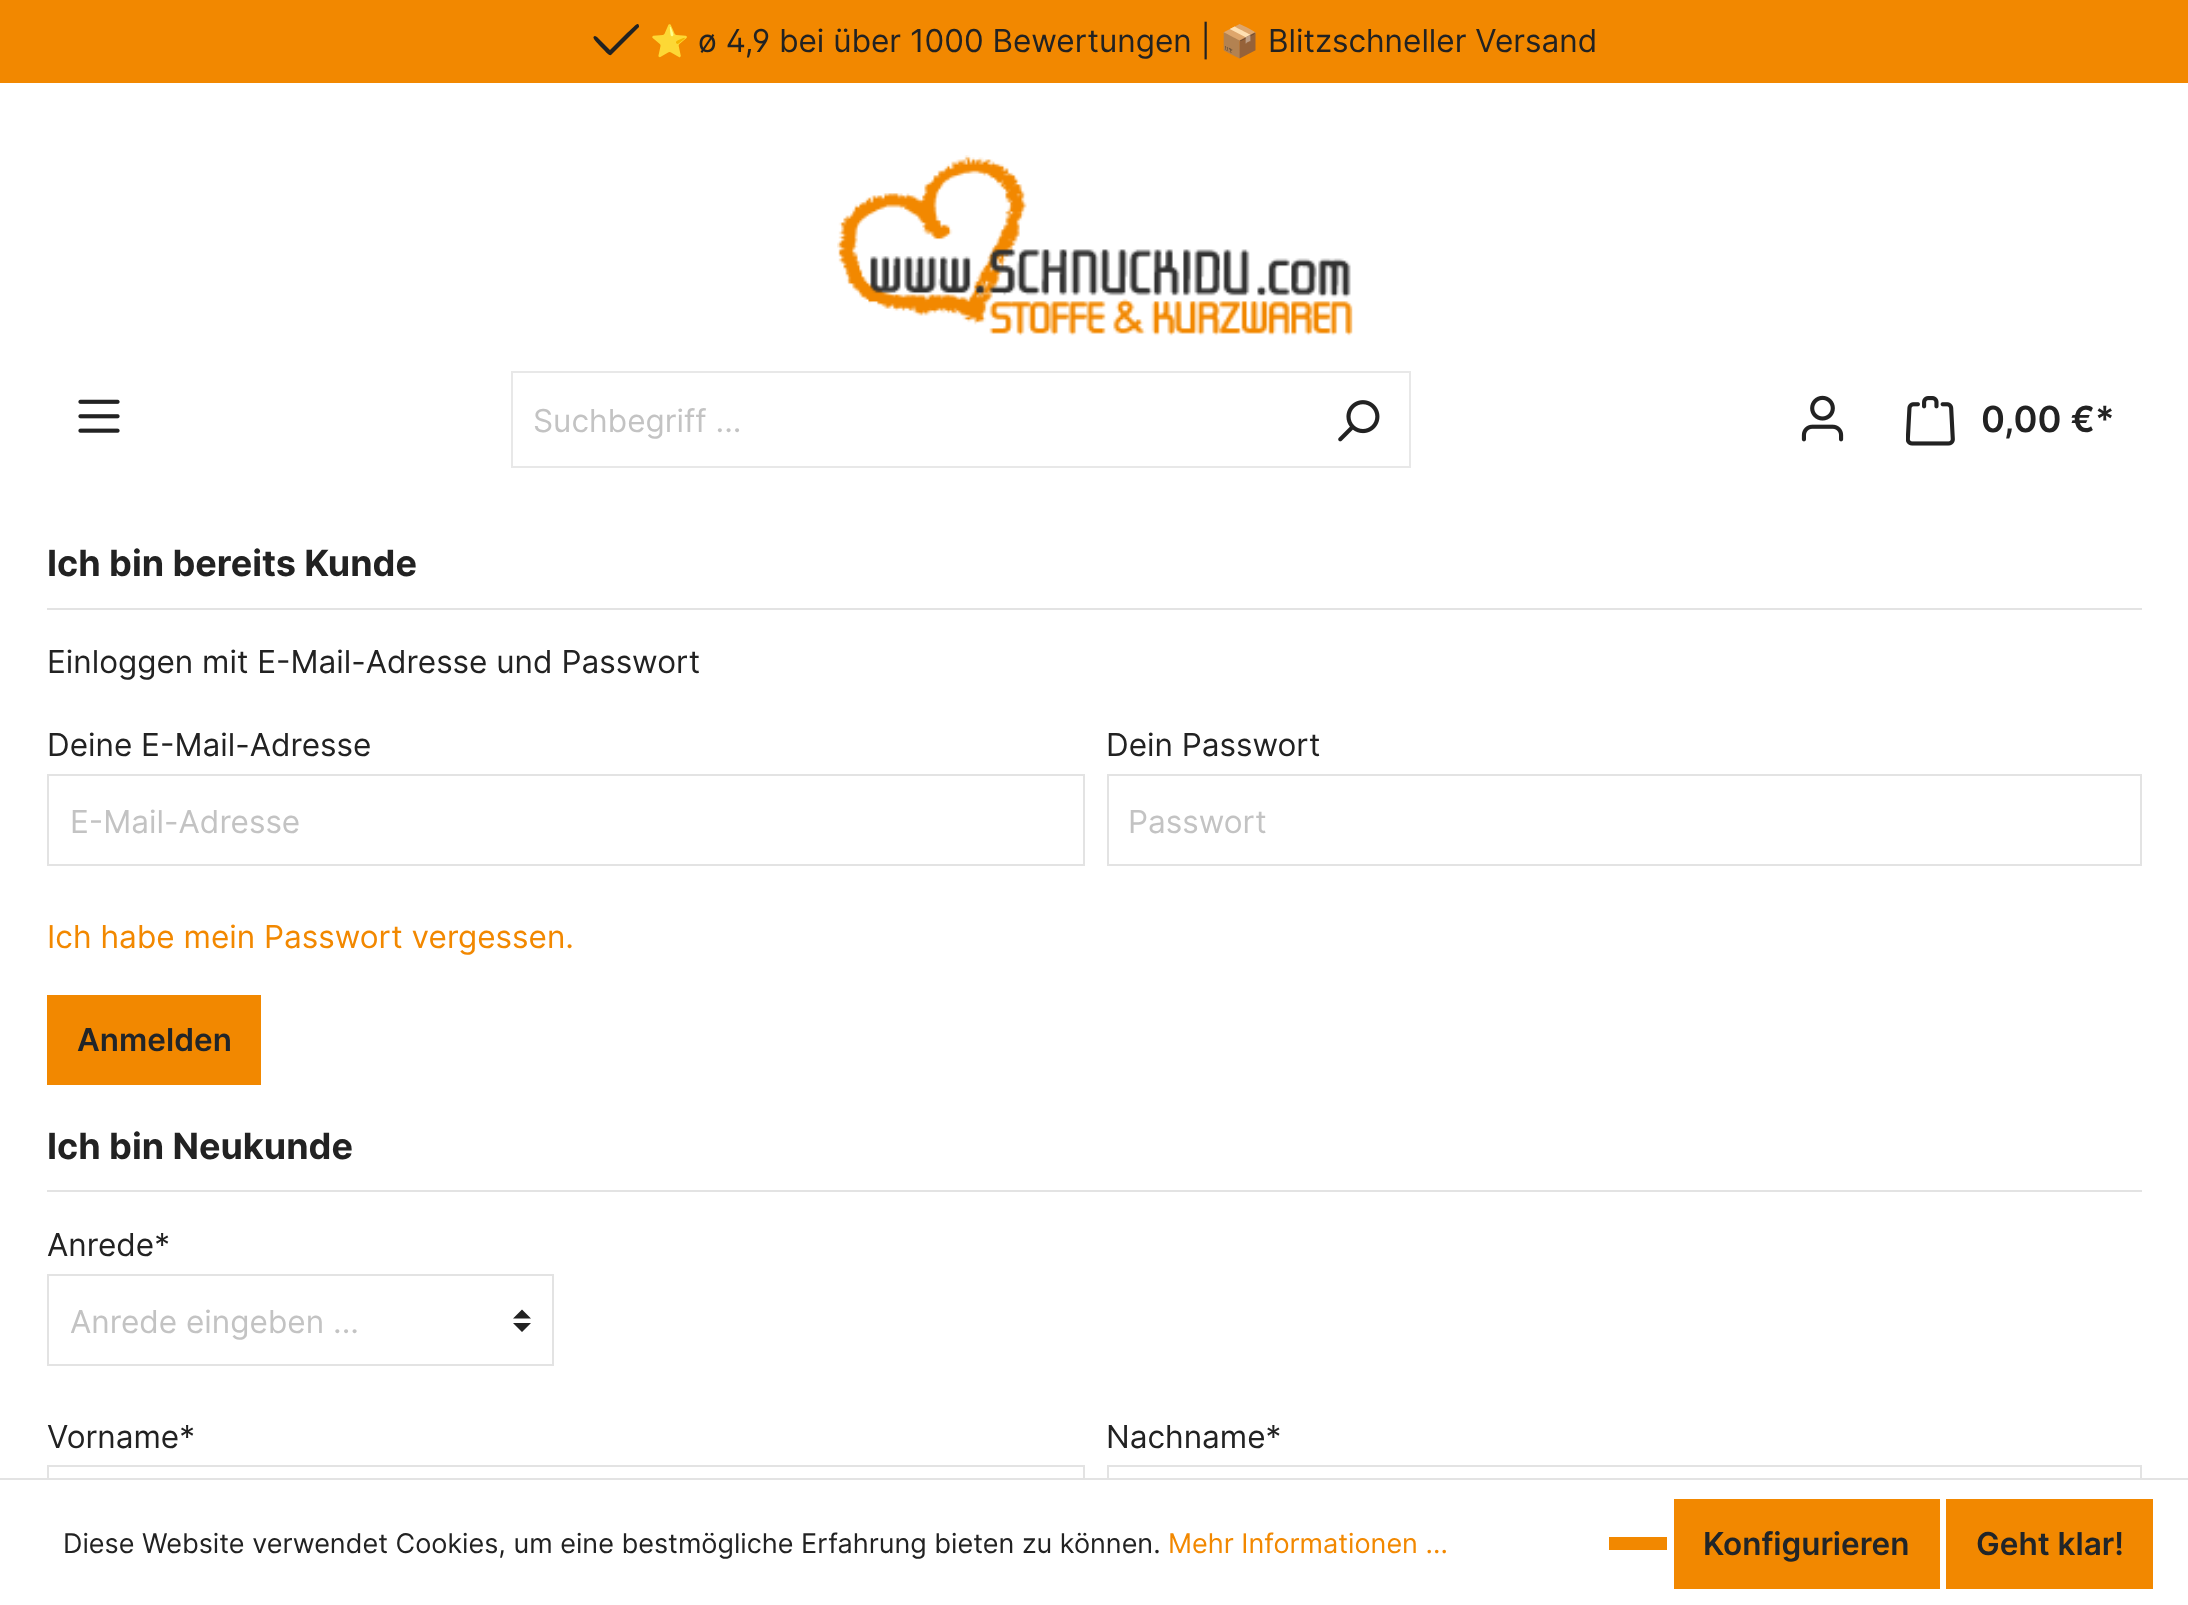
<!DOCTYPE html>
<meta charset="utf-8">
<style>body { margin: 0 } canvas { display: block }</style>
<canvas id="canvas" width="2188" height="1605"></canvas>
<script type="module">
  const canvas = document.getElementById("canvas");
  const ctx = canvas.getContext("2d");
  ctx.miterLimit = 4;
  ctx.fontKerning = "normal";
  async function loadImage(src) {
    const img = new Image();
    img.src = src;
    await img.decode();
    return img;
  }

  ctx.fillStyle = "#ffffff";
  ctx.fillRect(0, 0, 2188, 1605);
  ctx.fillStyle = "#f28800";
  ctx.fillRect(0, 0, 2188, 83);
  ctx.fillStyle = "#222222";
  ctx.beginPath();
  ctx.moveTo(597, 37);
  ctx.lineTo(595, 36);
  ctx.bezierCurveTo(590, 37, 599, 44, 599, 45);
  ctx.lineTo(604, 50);
  ctx.bezierCurveTo(605, 51, 609, 56, 611, 55);
  ctx.lineTo(639, 27);
  ctx.lineTo(639, 26);
  ctx.bezierCurveTo(638, 21, 635, 26, 627, 33);
  ctx.lineTo(610, 50);
  ctx.closePath();
  ctx.fill("evenodd");
  ctx.font = "31.5px Noto Color Emoji";
  ctx.fillText("⭐️", 650, 52);
  ctx.font = "31.5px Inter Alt";
  ctx.fillText("ø 4,9 bei über 1000 Bewertungen |", 698, 52);
  ctx.font = "31.5px Noto Color Emoji";
  ctx.fillText("📦", 1220, 52);
  ctx.font = "31.5px Inter";
  ctx.fillText("Blitzschneller Versand", 1268, 52);
  ctx.drawImage(await loadImage("img1.png"), 837, 155, 516, 181);
  ctx.drawImage(await loadImage("img2.png"), 78, 399, 42, 34);
  ctx.strokeStyle = "#e8e8e8";
  ctx.lineWidth = 2;
  ctx.strokeRect(512, 372, 898, 95);
  ctx.fillStyle = "#c3c3c3";
  ctx.fillText("Suchbegriff ...", 533, 432);
  ctx.drawImage(await loadImage("img3.png"), 1338, 400, 42, 42);
  ctx.drawImage(await loadImage("img4.png"), 1801, 395, 43, 47);
  ctx.drawImage(await loadImage("img5.png"), 1906, 396, 49, 50);
  ctx.font = "600 36px Inter";
  ctx.fillStyle = "#222222";
  ctx.fillText("0,00 €*", 1981, 432);
  ctx.fillStyle = "#e3e3e3";
  ctx.fillRect(47, 608, 2095, 2);
  ctx.font = "bold 36px Inter";
  ctx.fillStyle = "#222222";
  ctx.fillText("Ich bin bereits Kunde", 47, 576);
  ctx.font = "31.5px Inter";
  ctx.fillText("Einloggen mit E-Mail-Adresse und Passwort", 47, 673);
  ctx.fillText("Deine E-Mail-Adresse", 47, 756);
  ctx.strokeStyle = "#e3e3e3";
  ctx.strokeRect(48, 775, 1036, 90);
  ctx.fillStyle = "#c3c3c3";
  ctx.fillText("E-Mail-Adresse", 70, 833);
  ctx.fillStyle = "#222222";
  ctx.fillText("Dein Passwort", 1106, 756);
  ctx.strokeRect(1108, 775, 1033, 90);
  ctx.fillStyle = "#c3c3c3";
  ctx.fillText("Passwort", 1128, 833);
  ctx.fillStyle = "#f28800";
  ctx.fillText("Ich habe mein Passwort vergessen.", 47, 948);
  ctx.fillRect(47, 995, 214, 90);
  ctx.font = "600 31.5px Inter";
  ctx.fillStyle = "#212529";
  ctx.fillText("Anmelden", 77, 1051);
  ctx.fillStyle = "#e3e3e3";
  ctx.fillRect(47, 1190, 2095, 2);
  ctx.font = "bold 36px Inter";
  ctx.fillStyle = "#222222";
  ctx.fillText("Ich bin Neukunde", 47, 1159);
  ctx.font = "31.5px Inter";
  ctx.fillText("Anrede*", 47, 1256);
  ctx.beginPath();
  ctx.moveTo(522, 1309.5);
  ctx.lineTo(513, 1318.5);
  ctx.lineTo(531, 1318.5);
  ctx.closePath();
  ctx.moveTo(522, 1332);
  ctx.lineTo(513, 1323);
  ctx.lineTo(531, 1323);
  ctx.closePath();
  ctx.fill();
  ctx.strokeRect(48, 1275, 505, 90);
  ctx.fillStyle = "#c3c3c3";
  ctx.fillText("Anrede eingeben ...", 70, 1333);
  ctx.fillStyle = "#222222";
  ctx.fillText("Vorname*", 47, 1448);
  ctx.strokeRect(48, 1466, 1036, 90);
  ctx.fillText("Nachname*", 1106, 1448);
  ctx.strokeRect(1108, 1466, 1033, 90);
  ctx.fillStyle = "#ffffff";
  ctx.fillRect(47, 1480, 2095, 77);
  ctx.fillStyle = "#e3e3e3";
  ctx.fillRect(0, 1478, 2188, 2);
  ctx.font = "27px Inter";
  ctx.fillStyle = "#222222";
  ctx.fillText("Diese Website verwendet Cookies, um eine bestmögliche Erfahrung bieten zu können.", 63, 1553);
  ctx.fillStyle = "#f28800";
  ctx.fillText("Mehr Informationen ...", 1168, 1553);
  ctx.fillRect(1609, 1537, 58, 13);
  ctx.fillRect(1674, 1499, 266, 90);
  ctx.font = "600 31.5px Inter";
  ctx.fillStyle = "#212529";
  ctx.fillText("Konfigurieren", 1703, 1555);
  ctx.fillStyle = "#f28800";
  ctx.fillRect(1946, 1499, 207, 90);
  ctx.fillStyle = "#212529";
  ctx.fillText("Geht klar!", 1976, 1555);
</script>
